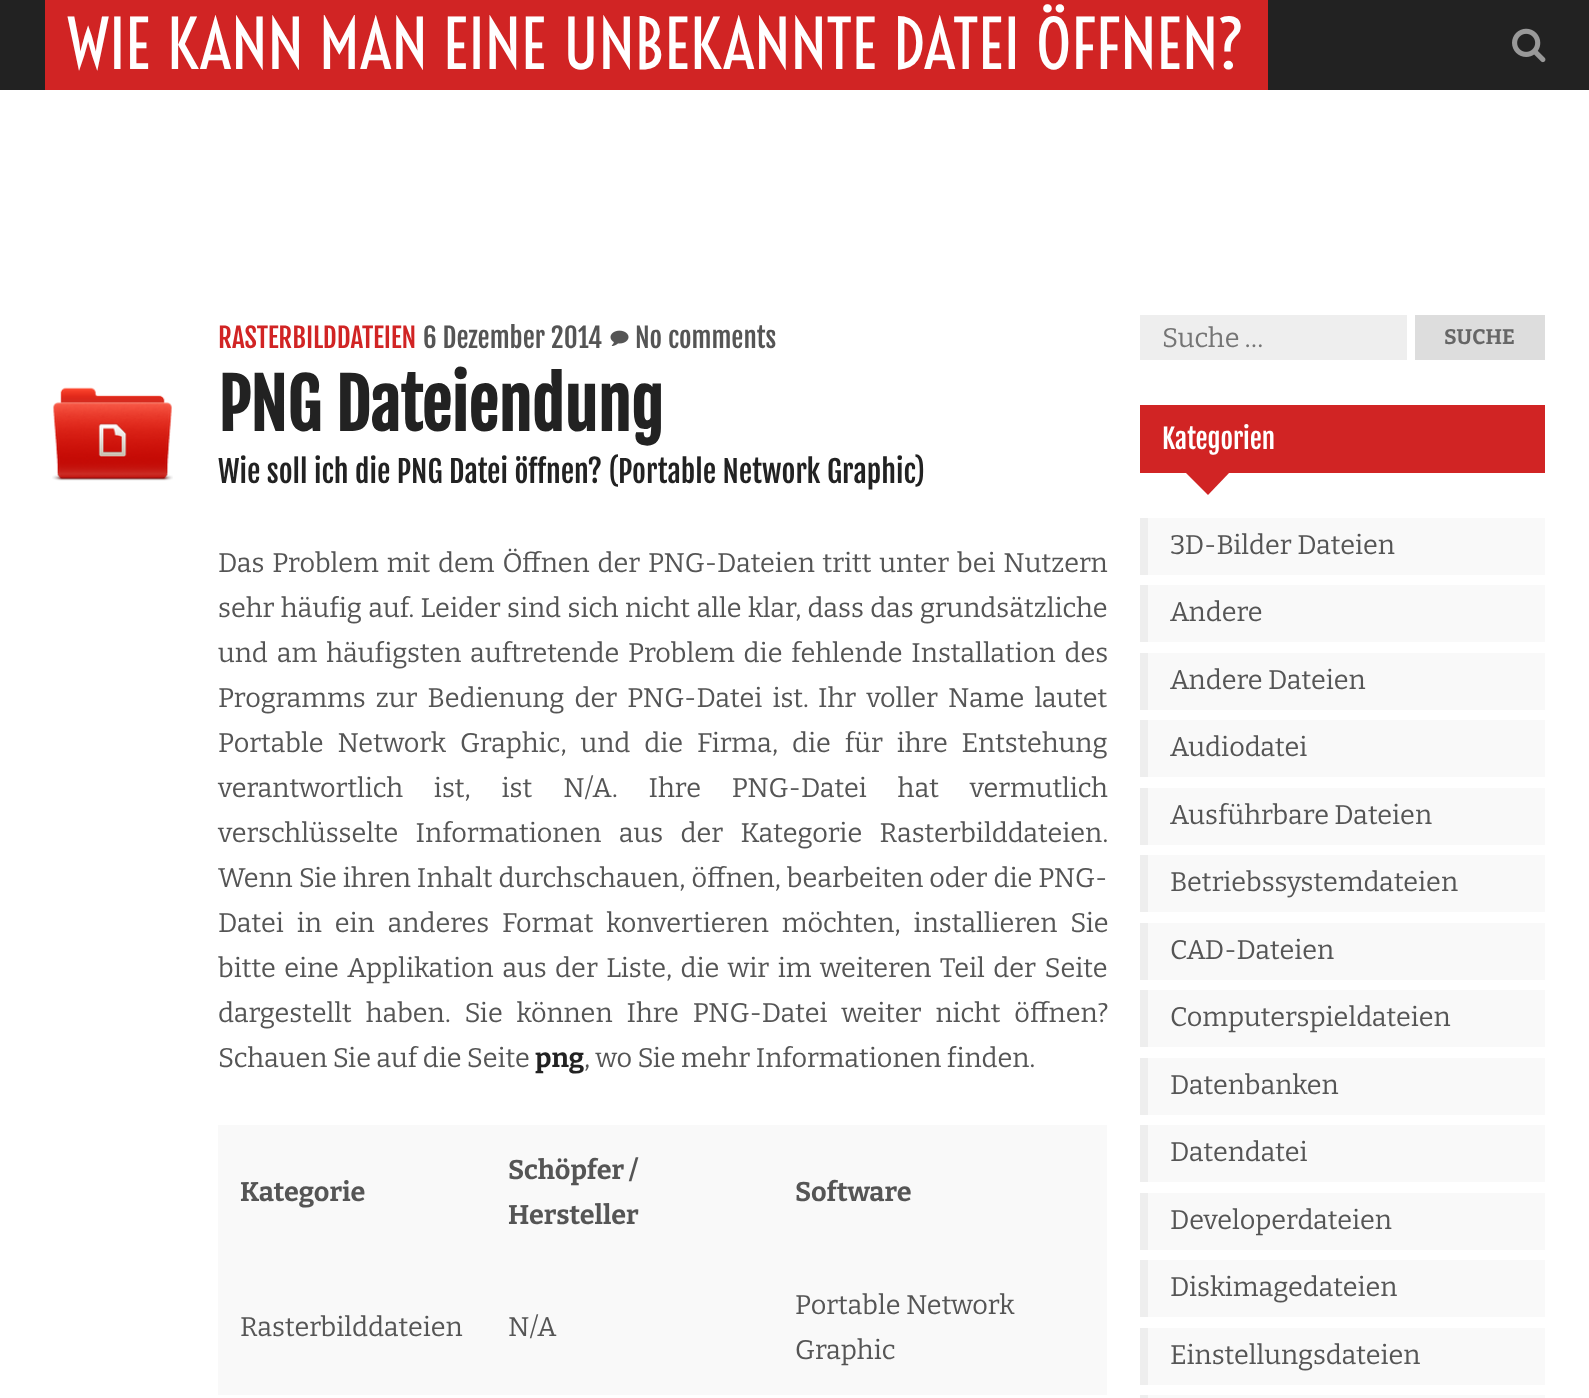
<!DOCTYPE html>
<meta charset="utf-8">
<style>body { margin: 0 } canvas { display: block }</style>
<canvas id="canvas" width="1589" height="1398"></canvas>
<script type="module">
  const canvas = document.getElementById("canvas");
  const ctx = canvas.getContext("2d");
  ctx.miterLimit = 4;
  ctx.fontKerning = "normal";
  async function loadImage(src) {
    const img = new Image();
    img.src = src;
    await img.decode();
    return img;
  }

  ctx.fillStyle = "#ffffff";
  ctx.fillRect(0, 0, 1589, 1398);
  ctx.fillStyle = "#222222";
  ctx.fillRect(0, 0, 1589, 90);
  ctx.fillStyle = "#d12424";
  ctx.fillRect(45, 0, 1223, 90);
  ctx.font = "67.5px Voltaire";
  ctx.fillStyle = "#ffffff";
  ctx.fillText("WIE KANN MAN EINE UNBEKANNTE DATEI ÖFFNEN?", 68, 69);
  ctx.drawImage(await loadImage("img1.png"), 1512, 28, 34, 35);
  ctx.drawImage(await loadImage("img2.png"), 52, 387, 121, 94);
  ctx.font = "27px Fjalla One";
  ctx.fillStyle = "#d12424";
  ctx.fillText("RASTERBILDDATEIEN", 218, 348);
  ctx.fillStyle = "#555555";
  ctx.fillText("6 Dezember 2014", 423, 348);
  ctx.drawImage(await loadImage("img3.png"), 610, 330, 19, 16);
  ctx.fillText("No comments", 635, 348);
  ctx.font = "bold 67.5px Fjalla One";
  ctx.fillStyle = "#222222";
  ctx.fillText("PNG Dateiendung", 218, 431);
  ctx.font = "30px Fjalla One";
  ctx.fillText("Wie soll ich die PNG Datei öffnen? (Portable Network Graphic)", 218, 483);
  ctx.wordSpacing = "2.4px";
  ctx.font = "27px Bitter";
  ctx.fillStyle = "#555555";
  ctx.fillText("Das Problem mit dem Öffnen der PNG-Dateien tritt unter bei Nutzern", 218, 572);
  ctx.wordSpacing = "1px";
  ctx.fillText("sehr häufig auf. Leider sind sich nicht alle klar, dass das grundsätzliche", 218, 617);
  ctx.wordSpacing = "3.5px";
  ctx.fillText("und am häufigsten auftretende Problem die fehlende Installation des", 218, 662);
  ctx.wordSpacing = "4.75px";
  ctx.fillText("Programms zur Bedienung der PNG-Datei ist.", 218, 707);
  ctx.fillText("Ihr voller Name lautet", 818, 707);
  ctx.wordSpacing = "8.5px";
  ctx.fillText("Portable Network Graphic, und die Firma, die für ihre Entstehung", 218, 752);
  ctx.wordSpacing = "25.5px";
  ctx.fillText("verantwortlich ist, ist N/A. Ihre PNG-Datei hat vermutlich", 218, 797);
  ctx.wordSpacing = "12px";
  ctx.fillText("verschlüsselte Informationen aus der Kategorie Rasterbilddateien.", 218, 842);
  ctx.wordSpacing = "0.6px";
  ctx.fillText("Wenn Sie ihren Inhalt durchschauen, öffnen, bearbeiten oder die PNG-", 218, 887);
  ctx.wordSpacing = "7.5px";
  ctx.fillText("Datei in ein anderes Format konvertieren möchten, installieren Sie", 218, 932);
  ctx.wordSpacing = "3.1px";
  ctx.fillText("bitte eine Applikation aus der Liste, die wir im weiteren Teil der Seite", 218, 977);
  ctx.wordSpacing = "8.5px";
  ctx.fillText("dargestellt haben. Sie können Ihre PNG-Datei weiter nicht öffnen?", 218, 1022);
  ctx.wordSpacing = "0px";
  ctx.fillText("Schauen Sie auf die Seite", 218, 1067);
  ctx.font = "bold 27px Bitter";
  ctx.fillStyle = "#222222";
  ctx.fillText("png", 535, 1067);
  ctx.font = "27px Bitter";
  ctx.fillStyle = "#555555";
  ctx.fillText(", wo Sie mehr Informationen finden.", 584, 1067);
  ctx.fillStyle = "#f9f9f9";
  ctx.fillRect(218, 1125, 889, 270);
  ctx.font = "bold 27px Bitter";
  ctx.fillStyle = "#555555";
  ctx.fillText("Kategorie", 240, 1201);
  ctx.fillText("Schöpfer /", 508, 1179);
  ctx.fillText("Hersteller", 508, 1224);
  ctx.fillText("Software", 795, 1201);
  ctx.font = "27px Bitter";
  ctx.fillText("Rasterbilddateien", 240, 1336);
  ctx.fillText("N/A", 508, 1336);
  ctx.fillText("Portable Network", 795, 1314);
  ctx.fillText("Graphic", 795, 1359);
  ctx.fillStyle = "#eeeeee";
  ctx.fillRect(1140, 315, 267, 45);
  ctx.fillStyle = "#757575";
  ctx.fillText("Suche …", 1162, 347);
  ctx.fillStyle = "#dddddd";
  ctx.fillRect(1415, 315, 130, 45);
  ctx.font = "bold 21px Bitter";
  ctx.fillStyle = "#666666";
  ctx.fillText("SUCHE", 1444, 344);
  ctx.fillStyle = "#d12424";
  ctx.fillRect(1140, 405, 405, 68);
  ctx.font = "27px Fjalla One";
  ctx.fillStyle = "#ffffff";
  ctx.fillText("Kategorien", 1162, 449);
  ctx.fillStyle = "#d12424";
  ctx.beginPath();
  ctx.moveTo(1185, 472);
  ctx.lineTo(1230, 472);
  ctx.lineTo(1208, 495);
  ctx.closePath();
  ctx.fill();
  ctx.fillStyle = "#f9f9f9";
  ctx.fillRect(1148, 518, 397, 57);
  ctx.fillStyle = "#eeeeee";
  ctx.fillRect(1140, 518, 8, 57);
  ctx.font = "27px Bitter";
  ctx.fillStyle = "#555555";
  ctx.fillText("3D-Bilder Dateien", 1170, 554);
  ctx.fillStyle = "#f9f9f9";
  ctx.fillRect(1148, 585, 397, 57);
  ctx.fillStyle = "#eeeeee";
  ctx.fillRect(1140, 585, 8, 57);
  ctx.fillStyle = "#555555";
  ctx.fillText("Andere", 1170, 621);
  ctx.fillStyle = "#f9f9f9";
  ctx.fillRect(1148, 653, 397, 57);
  ctx.fillStyle = "#eeeeee";
  ctx.fillRect(1140, 653, 8, 57);
  ctx.fillStyle = "#555555";
  ctx.fillText("Andere Dateien", 1170, 689);
  ctx.fillStyle = "#f9f9f9";
  ctx.fillRect(1148, 720, 397, 57);
  ctx.fillStyle = "#eeeeee";
  ctx.fillRect(1140, 720, 8, 57);
  ctx.fillStyle = "#555555";
  ctx.fillText("Audiodatei", 1170, 756);
  ctx.fillStyle = "#f9f9f9";
  ctx.fillRect(1148, 788, 397, 57);
  ctx.fillStyle = "#eeeeee";
  ctx.fillRect(1140, 788, 8, 57);
  ctx.fillStyle = "#555555";
  ctx.fillText("Ausführbare Dateien", 1170, 824);
  ctx.fillStyle = "#f9f9f9";
  ctx.fillRect(1148, 855, 397, 57);
  ctx.fillStyle = "#eeeeee";
  ctx.fillRect(1140, 855, 8, 57);
  ctx.fillStyle = "#555555";
  ctx.fillText("Betriebssystemdateien", 1170, 891);
  ctx.fillStyle = "#f9f9f9";
  ctx.fillRect(1148, 923, 397, 57);
  ctx.fillStyle = "#eeeeee";
  ctx.fillRect(1140, 923, 8, 57);
  ctx.fillStyle = "#555555";
  ctx.fillText("CAD-Dateien", 1170, 959);
  ctx.fillStyle = "#f9f9f9";
  ctx.fillRect(1148, 990, 397, 57);
  ctx.fillStyle = "#eeeeee";
  ctx.fillRect(1140, 990, 8, 57);
  ctx.fillStyle = "#555555";
  ctx.fillText("Computerspieldateien", 1170, 1026);
  ctx.fillStyle = "#f9f9f9";
  ctx.fillRect(1148, 1058, 397, 57);
  ctx.fillStyle = "#eeeeee";
  ctx.fillRect(1140, 1058, 8, 57);
  ctx.fillStyle = "#555555";
  ctx.fillText("Datenbanken", 1170, 1094);
  ctx.fillStyle = "#f9f9f9";
  ctx.fillRect(1148, 1125, 397, 57);
  ctx.fillStyle = "#eeeeee";
  ctx.fillRect(1140, 1125, 8, 57);
  ctx.fillStyle = "#555555";
  ctx.fillText("Datendatei", 1170, 1161);
  ctx.fillStyle = "#f9f9f9";
  ctx.fillRect(1148, 1193, 397, 57);
  ctx.fillStyle = "#eeeeee";
  ctx.fillRect(1140, 1193, 8, 57);
  ctx.fillStyle = "#555555";
  ctx.fillText("Developerdateien", 1170, 1229);
  ctx.fillStyle = "#f9f9f9";
  ctx.fillRect(1148, 1260, 397, 57);
  ctx.fillStyle = "#eeeeee";
  ctx.fillRect(1140, 1260, 8, 57);
  ctx.fillStyle = "#555555";
  ctx.fillText("Diskimagedateien", 1170, 1296);
  ctx.fillStyle = "#f9f9f9";
  ctx.fillRect(1148, 1328, 397, 57);
  ctx.fillStyle = "#eeeeee";
  ctx.fillRect(1140, 1328, 8, 57);
  ctx.fillStyle = "#555555";
  ctx.fillText("Einstellungsdateien", 1170, 1364);
  ctx.fillStyle = "#f9f9f9";
  ctx.fillRect(1140, 1395, 405, 3);
  ctx.fillStyle = "#eeeeee";
  ctx.fillRect(1140, 1395, 8, 3);
</script>
